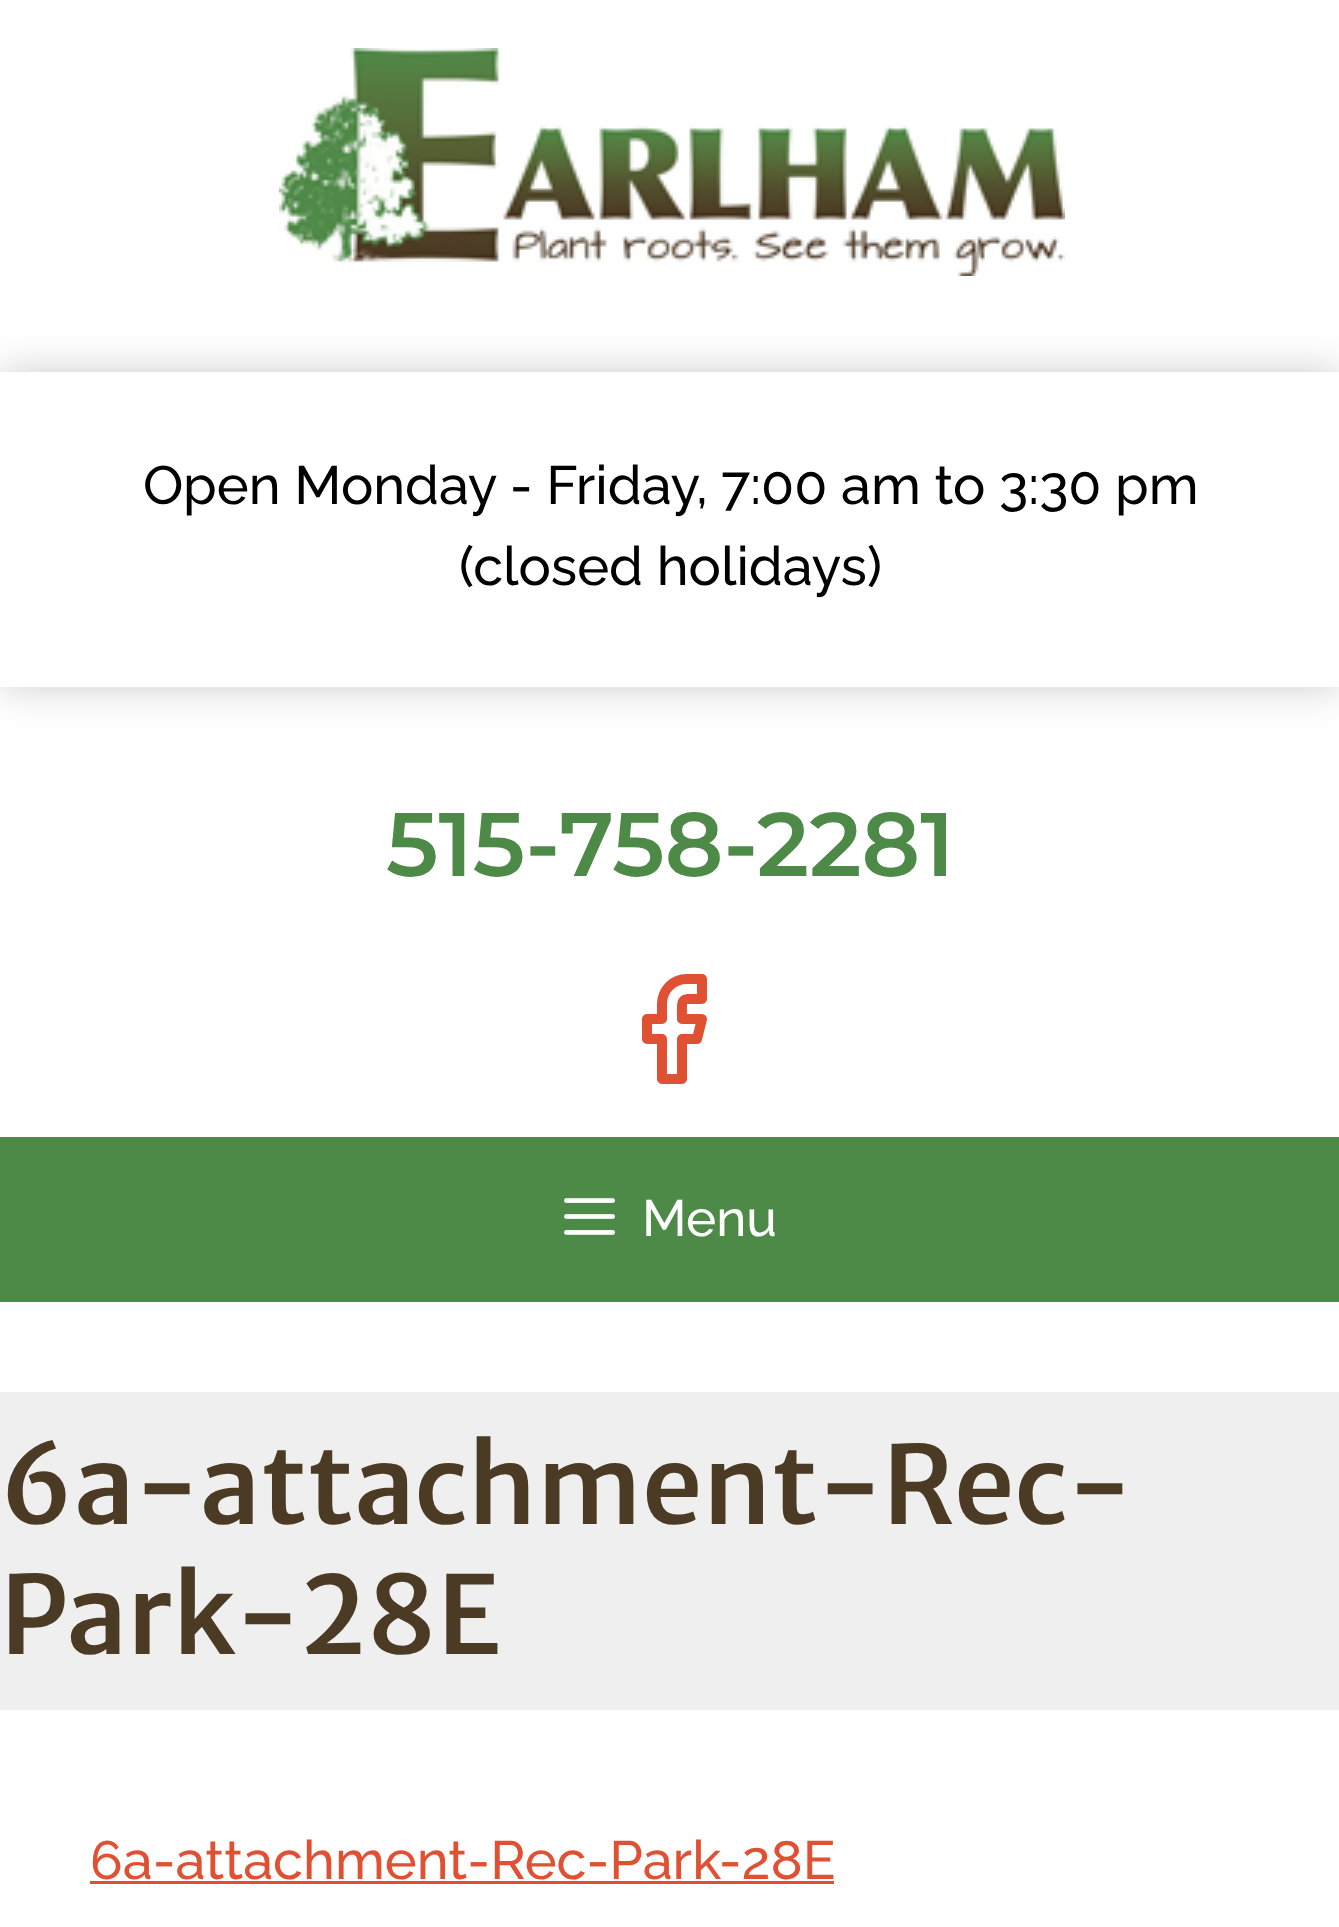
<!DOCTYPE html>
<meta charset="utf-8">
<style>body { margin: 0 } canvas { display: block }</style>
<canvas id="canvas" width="1339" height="1927"></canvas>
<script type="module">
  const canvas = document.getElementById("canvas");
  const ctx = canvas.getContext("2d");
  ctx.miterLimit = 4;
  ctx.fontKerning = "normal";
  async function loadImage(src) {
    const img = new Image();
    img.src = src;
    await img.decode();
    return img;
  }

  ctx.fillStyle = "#ffffff";
  ctx.fillRect(0, 0, 1339, 1927);
  ctx.drawImage(await loadImage("img1.png"), 279, 48, 786, 228);
  ctx.save();
  ctx.beginPath();
  ctx.moveTo(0, 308);
  ctx.lineTo(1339, 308);
  ctx.lineTo(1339, 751);
  ctx.lineTo(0, 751);
  ctx.closePath();
  ctx.moveTo(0, 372);
  ctx.lineTo(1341, 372);
  ctx.lineTo(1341, 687);
  ctx.lineTo(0, 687);
  ctx.closePath();
  ctx.clip("evenodd");
  ctx.fillStyle = "rgba(0, 0, 0, 0.2)";
  ctx.filter = "blur(21px)";
  ctx.beginPath();
  ctx.rect(0, 372, 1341, 315);
  ctx.fill();
  ctx.filter = "none";
  ctx.restore();
  ctx.font = "500 54px Raleway";
  ctx.fillStyle = "#000000";
  ctx.fillText("Open Monday - Friday, 7:00 am to 3:30 pm", 143, 504);
  ctx.fillText("(closed holidays)", 459, 585);
  ctx.font = "600 90px Montserrat";
  ctx.fillStyle = "#4e8a47";
  ctx.fillText("515-758-2281", 386, 876);
  ctx.beginPath();
  ctx.moveTo(702, 979);
  ctx.lineTo(687, 979);
  ctx.bezierCurveTo(673, 979, 662, 990, 662, 1004);
  ctx.lineTo(662, 1019);
  ctx.lineTo(647, 1019);
  ctx.lineTo(647, 1039);
  ctx.lineTo(662, 1039);
  ctx.lineTo(662, 1079);
  ctx.lineTo(682, 1079);
  ctx.lineTo(682, 1039);
  ctx.lineTo(697, 1039);
  ctx.lineTo(702, 1019);
  ctx.lineTo(682, 1019);
  ctx.bezierCurveTo(682, 996.5, 679.5, 999, 702, 999);
  ctx.closePath();
  ctx.strokeStyle = "#e05033";
  ctx.lineWidth = 10;
  ctx.lineCap = "round";
  ctx.lineJoin = "round";
  ctx.stroke();
  ctx.fillRect(0, 1137, 1339, 165);
  ctx.drawImage(await loadImage("img2.png"), 564, 1198, 51, 37);
  ctx.font = "500 51px Raleway";
  ctx.fillStyle = "#ffffff";
  ctx.fillText("Menu", 642, 1236);
  ctx.fillStyle = "#efefef";
  ctx.fillRect(0, 1392, 1339, 318);
  ctx.font = "500 108px Merriweather Sans";
  ctx.fillStyle = "#4b3b24";
  ctx.fillText("6a-attachment-Rec-", 0, 1524);
  ctx.fillText("Park-28E", 0, 1654);
  ctx.font = "500 54px Raleway";
  ctx.fillStyle = "#e05033";
  ctx.fillText("6a-attachment-Rec-Park-28E", 90, 1879);
  ctx.fillRect(90, 1881, 744, 3);
</script>
